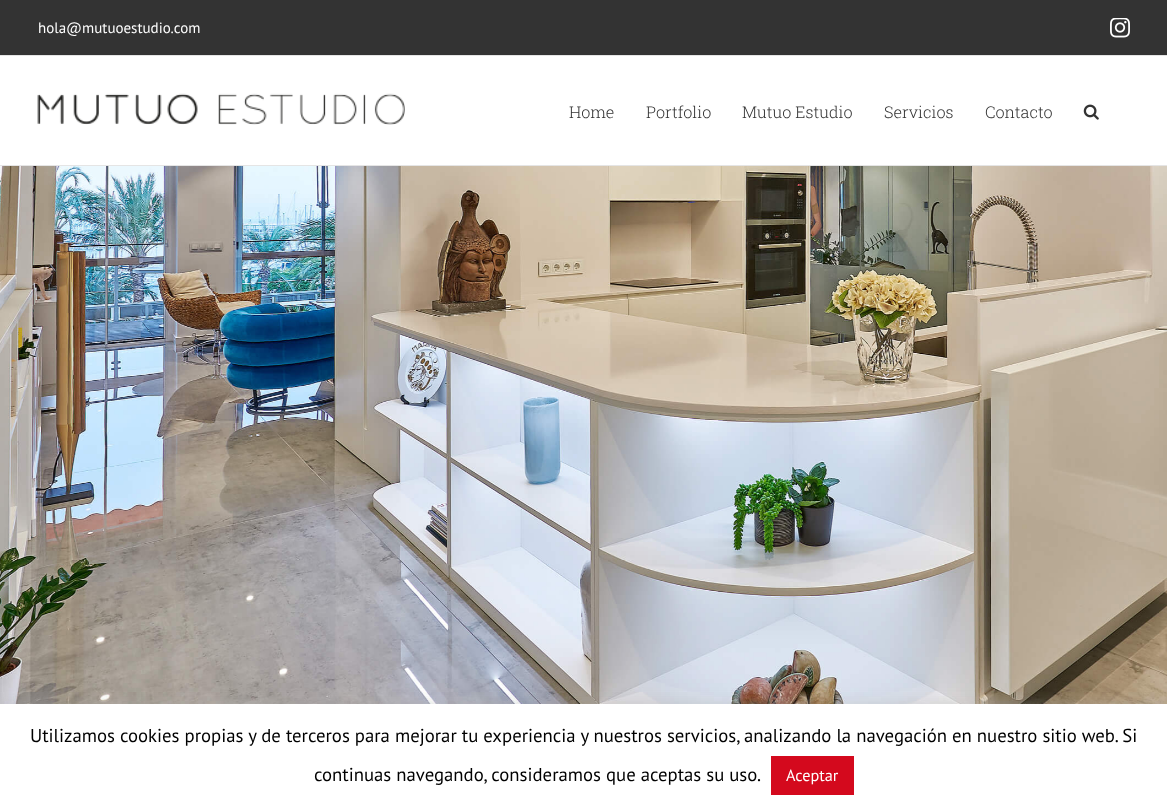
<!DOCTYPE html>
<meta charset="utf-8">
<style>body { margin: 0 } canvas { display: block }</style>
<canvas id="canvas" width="1167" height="809"></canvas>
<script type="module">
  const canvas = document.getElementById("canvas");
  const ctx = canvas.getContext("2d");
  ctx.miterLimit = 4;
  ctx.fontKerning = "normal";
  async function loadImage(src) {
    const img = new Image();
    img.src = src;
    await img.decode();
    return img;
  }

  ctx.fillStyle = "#ffffff";
  ctx.fillRect(0, 0, 1167, 809);
  ctx.fillStyle = "#333333";
  ctx.fillRect(0, 0, 1167, 55);
  ctx.fillStyle = "#e5e5e5";
  ctx.fillRect(0, 55, 1167, 1);
  ctx.font = "15px PT Sans";
  ctx.fillStyle = "#ffffff";
  ctx.fillText("hola@mutuoestudio.com", 38, 33);
  ctx.drawImage(await loadImage("img1.png"), 1110, 18, 20, 20);
  ctx.fillStyle = "#e5e5e5";
  ctx.fillRect(0, 165, 1167, 1);
  ctx.drawImage(await loadImage("img2.png"), 37, 93, 368, 32);
  ctx.font = "300 16.25px Roboto Slab";
  ctx.fillStyle = "#333333";
  ctx.fillText("Home", 569, 118);
  ctx.fillText("Portfolio", 646, 118);
  ctx.fillText("Mutuo Estudio", 742, 118);
  ctx.fillText("Servicios", 884, 118);
  ctx.fillText("Contacto", 985, 118);
  ctx.drawImage(await loadImage("img3.png"), 1083, 104, 16, 16);
  ctx.drawImage(await loadImage("img4.png"), 0, 166, 1167, 538);
  ctx.fillStyle = "rgba(172, 171, 171, 0.3)";
  ctx.filter = "blur(6px)";
  ctx.beginPath();
  ctx.rect(0, 703, 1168, 106);
  ctx.fill();
  ctx.filter = "none";
  ctx.fillStyle = "#ffffff";
  ctx.fillRect(0, 704, 1167, 105);
  ctx.font = "18.75px PT Sans";
  ctx.fillStyle = "#000000";
  ctx.fillText("Utilizamos cookies propias y de terceros para mejorar tu experiencia y nuestros servicios, analizando la navegación en nuestro sitio web. Si", 30, 742);
  ctx.fillText("continuas navegando, consideramos que aceptas su uso.", 314, 781);
  ctx.fillStyle = "#d4091d";
  ctx.fillRect(771, 756, 83, 39);
  ctx.font = "16.25px PT Sans";
  ctx.fillStyle = "#ffffff";
  ctx.fillText("Aceptar", 786, 781);
</script>
